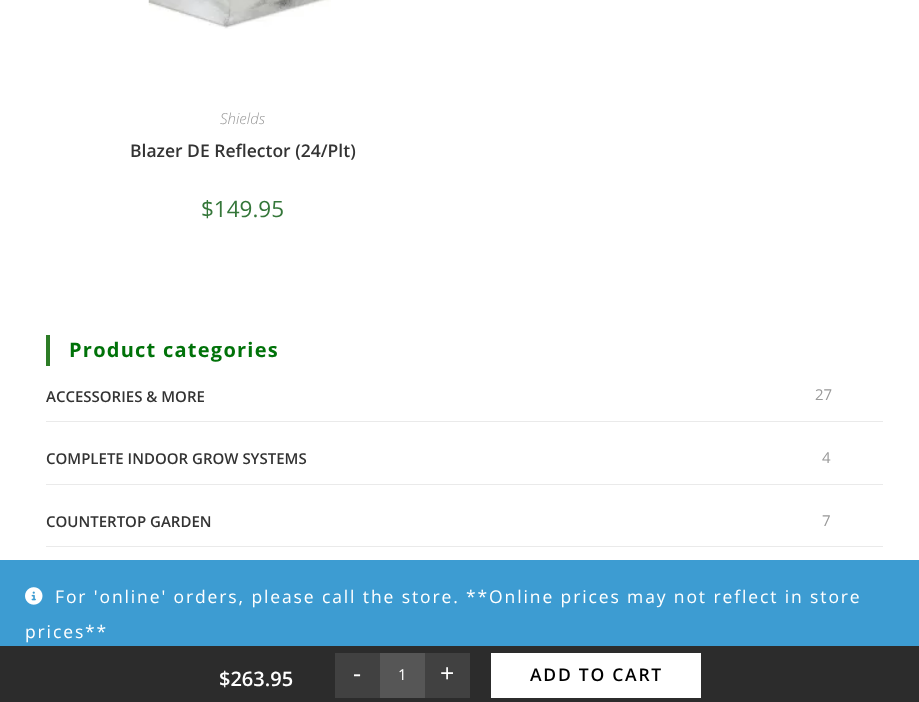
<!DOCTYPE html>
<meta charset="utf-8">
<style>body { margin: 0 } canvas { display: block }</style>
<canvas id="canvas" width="919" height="702"></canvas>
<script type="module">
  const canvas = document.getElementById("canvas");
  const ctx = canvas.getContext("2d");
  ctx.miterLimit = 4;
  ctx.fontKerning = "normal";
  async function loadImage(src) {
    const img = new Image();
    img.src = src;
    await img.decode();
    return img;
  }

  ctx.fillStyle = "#ffffff";
  ctx.fillRect(0, 0, 919, 702);
  ctx.drawImage(await loadImage("img1.png"), 148, 0, 183, 29);
  ctx.font = "italic 300 15px Open Sans";
  ctx.fillStyle = "#999999";
  ctx.fillText("Shields", 220, 124);
  ctx.font = "600 17.5px Open Sans";
  ctx.fillStyle = "#333333";
  ctx.fillText("Blazer DE Reflector (24/Plt)", 130, 157);
  ctx.font = "22.5px Open Sans";
  ctx.fillStyle = "#35773a";
  ctx.fillText("$149.95", 201, 217);
  ctx.fillStyle = "#2d7c26";
  ctx.fillRect(46, 335, 4, 31);
  ctx.letterSpacing = "1.25px";
  ctx.font = "bold 20px Open Sans";
  ctx.fillStyle = "#007209";
  ctx.fillText("Product categories", 69, 357);
  ctx.fillStyle = "#eaeaea";
  ctx.fillRect(46, 421, 837, 1);
  ctx.letterSpacing = "0px";
  ctx.font = "600 15px Open Sans";
  ctx.fillStyle = "#333333";
  ctx.fillText("ACCESSORIES & MORE", 46, 402);
  ctx.font = "15px Open Sans";
  ctx.fillStyle = "#999999";
  ctx.fillText("27", 815, 400);
  ctx.fillStyle = "#eaeaea";
  ctx.fillRect(46, 484, 837, 1);
  ctx.font = "600 15px Open Sans";
  ctx.fillStyle = "#333333";
  ctx.fillText("COMPLETE INDOOR GROW SYSTEMS", 46, 464);
  ctx.font = "15px Open Sans";
  ctx.fillStyle = "#999999";
  ctx.fillText("4", 822, 463);
  ctx.fillStyle = "#eaeaea";
  ctx.fillRect(46, 546, 837, 1);
  ctx.font = "600 15px Open Sans";
  ctx.fillStyle = "#333333";
  ctx.fillText("COUNTERTOP GARDEN", 46, 527);
  ctx.font = "15px Open Sans";
  ctx.fillStyle = "#999999";
  ctx.fillText("7", 822, 526);
  ctx.fillStyle = "#2c2c2c";
  ctx.fillRect(0, 646, 919, 56);
  ctx.font = "600 20px Open Sans";
  ctx.fillStyle = "#ffffff";
  ctx.fillText("$263.95", 219, 686);
  ctx.fillStyle = "#414141";
  ctx.fillRect(335, 653, 45, 45);
  ctx.font = "25px Open Sans";
  ctx.fillStyle = "#ffffff";
  ctx.fillText("-", 353, 682);
  ctx.fillStyle = "#565656";
  ctx.fillRect(380, 653, 45, 45);
  ctx.font = "15px Open Sans";
  ctx.fillStyle = "#ffffff";
  ctx.fillText("1", 398, 680);
  ctx.fillStyle = "#414141";
  ctx.fillRect(425, 653, 45, 45);
  ctx.font = "25px Open Sans";
  ctx.fillStyle = "#ffffff";
  ctx.fillText("+", 440, 682);
  ctx.fillRect(491, 653, 210, 45);
  ctx.letterSpacing = "1.75px";
  ctx.font = "600 17.5px Open Sans";
  ctx.fillStyle = "#000000";
  ctx.fillText("ADD TO CART", 530, 681);
  ctx.fillStyle = "#3d9cd2";
  ctx.fillRect(0, 560, 919, 86);
  ctx.drawImage(await loadImage("img2.png"), 25, 587, 18, 18);
  ctx.letterSpacing = "1.88px";
  ctx.font = "17.5px Open Sans";
  ctx.fillStyle = "#ffffff";
  ctx.fillText("For 'online' orders, please call the store. **Online prices may not reflect in store", 55, 603);
  ctx.fillText("prices**", 25, 638);
</script>
